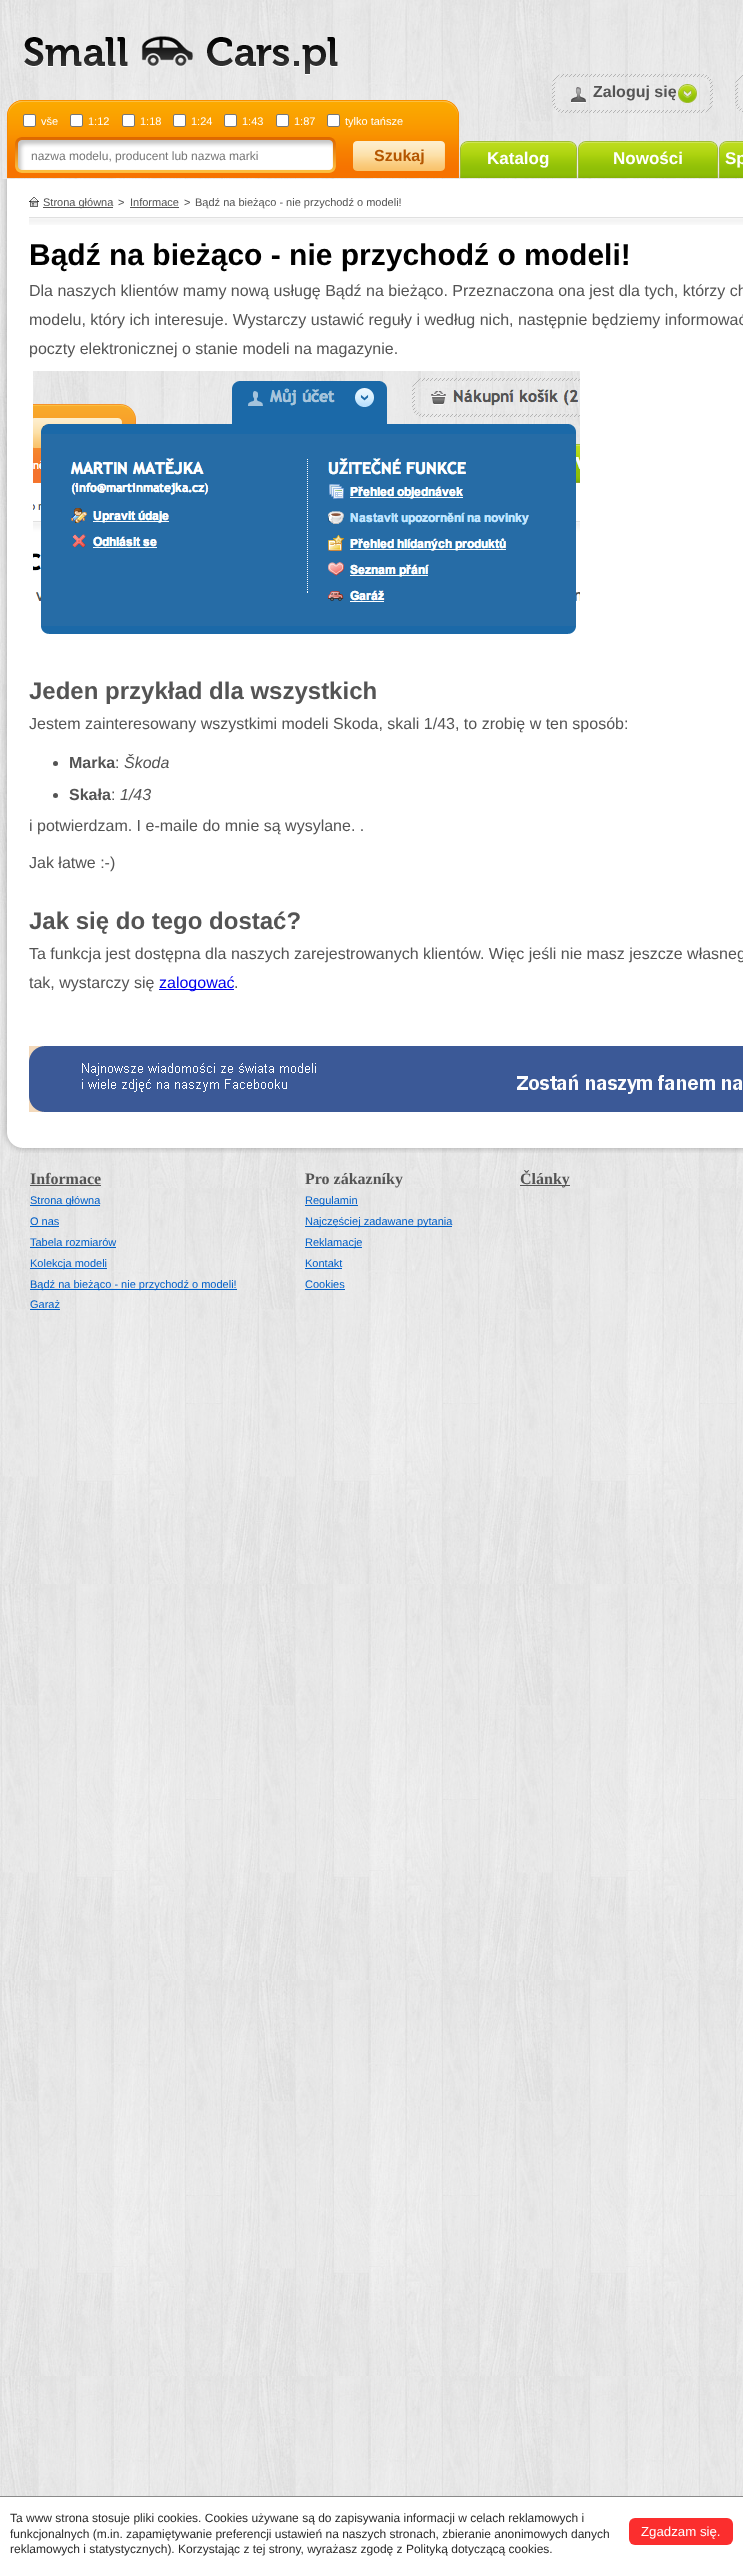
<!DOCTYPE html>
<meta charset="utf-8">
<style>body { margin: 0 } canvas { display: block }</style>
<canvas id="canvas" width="743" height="2572"></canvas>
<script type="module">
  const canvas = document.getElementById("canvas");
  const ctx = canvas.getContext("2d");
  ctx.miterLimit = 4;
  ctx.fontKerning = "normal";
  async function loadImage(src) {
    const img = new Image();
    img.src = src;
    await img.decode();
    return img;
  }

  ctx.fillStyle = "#ffffff";
  ctx.fillRect(0, 0, 743, 2572);
  ctx.drawImage(await loadImage("img1.png"), 0, 0, 743, 2496);
  ctx.drawImage(await loadImage("img2.png"), 24, 36, 314, 39);
  ctx.drawImage(await loadImage("img3.png"), 552, 74, 161, 39);
  ctx.font = "bold 16px Liberation Sans";
  ctx.fillStyle = "#545454";
  ctx.fillText("Zaloguj się", 593, 97);
  ctx.drawImage(await loadImage("img4.png"), 735, 75, 8, 37);
  ctx.drawImage(await loadImage("img5.png"), 7, 100, 452, 78);
  ctx.fillStyle = "#ffffff";
  ctx.beginPath();
  ctx.roundRect(23.5, 114.5, 12, 12, 1.5);
  ctx.fill();
  ctx.strokeStyle = "#767676";
  ctx.stroke();
  ctx.font = "11px Liberation Sans";
  ctx.fillText("vše", 41, 125);
  ctx.beginPath();
  ctx.roundRect(70.5, 114.5, 12, 12, 1.5);
  ctx.fill();
  ctx.stroke();
  ctx.fillText("1:12", 88, 125);
  ctx.beginPath();
  ctx.roundRect(122.5, 114.5, 12, 12, 1.5);
  ctx.fill();
  ctx.stroke();
  ctx.fillText("1:18", 140, 125);
  ctx.beginPath();
  ctx.roundRect(173.5, 114.5, 12, 12, 1.5);
  ctx.fill();
  ctx.stroke();
  ctx.fillText("1:24", 191, 125);
  ctx.beginPath();
  ctx.roundRect(224.5, 114.5, 12, 12, 1.5);
  ctx.fill();
  ctx.stroke();
  ctx.fillText("1:43", 242, 125);
  ctx.beginPath();
  ctx.roundRect(276.5, 114.5, 12, 12, 1.5);
  ctx.fill();
  ctx.stroke();
  ctx.fillText("1:87", 294, 125);
  ctx.beginPath();
  ctx.roundRect(327.5, 114.5, 12, 12, 1.5);
  ctx.fill();
  ctx.stroke();
  ctx.fillText("tylko tańsze", 345, 125);
  ctx.font = "12px Liberation Sans";
  ctx.fillStyle = "#777777";
  ctx.fillText("nazwa modelu, producent lub nazwa marki", 31, 160);
  ctx.drawImage(await loadImage("img6.png"), 353, 141, 92, 30);
  ctx.font = "bold 16px Liberation Sans";
  ctx.fillStyle = "#b45600";
  ctx.fillText("Szukaj", 374, 161);
  ctx.drawImage(await loadImage("img7.png"), 459, 141, 118, 37);
  ctx.font = "bold 17px Liberation Sans";
  ctx.fillStyle = "#ffffff";
  ctx.fillText("Katalog", 487, 164);
  ctx.drawImage(await loadImage("img8.png"), 577, 141, 141, 37);
  ctx.fillText("Nowości", 613, 164);
  ctx.drawImage(await loadImage("img9.png"), 718, 141, 25, 37);
  ctx.fillText("Sp", 725, 164);
  ctx.drawImage(await loadImage("img10.png"), 2, 179, 741, 952);
  ctx.drawImage(await loadImage("img11.png"), 29, 217, 714, 8);
  ctx.drawImage(await loadImage("img12.png"), 29, 197, 10, 10);
  ctx.fillStyle = "#545454";
  ctx.fillRect(43, 207, 70, 1);
  ctx.font = "11px Liberation Sans";
  ctx.fillText("Strona główna", 43, 206);
  ctx.fillText(">", 118, 206);
  ctx.fillText("Informace", 130, 206);
  ctx.fillRect(130, 207, 49, 1);
  ctx.fillText(">", 184, 206);
  ctx.fillText("Bądź na bieżąco - nie przychodź o modeli!", 195, 206);
  ctx.font = "bold 30px Liberation Sans";
  ctx.fillStyle = "#000000";
  ctx.fillText("Bądź na bieżąco - nie przychodź o modeli!", 29, 265);
  ctx.font = "16px Liberation Sans";
  ctx.fillStyle = "#545454";
  ctx.fillText("Dla naszych klientów mamy nową usługę Bądź na bieżąco. Przeznaczona ona jest dla tych, którzy ch", 29, 296);
  ctx.fillText("modelu, który ich interesuje. Wystarczy ustawić reguły i według nich, następnie będziemy informować", 29, 325);
  ctx.fillText("poczty elektronicznej o stanie modeli na magazynie.", 29, 354);
  ctx.drawImage(await loadImage("img13.png"), 33, 371, 547, 263);
  ctx.font = "bold 24px Liberation Sans";
  ctx.fillText("Jeden przykład dla wszystkich", 29, 699);
  ctx.font = "16px Liberation Sans";
  ctx.fillText("Jestem zainteresowany wszystkimi modeli Skoda, skali 1/43, to zrobię w ten sposób:", 29, 729);
  ctx.beginPath();
  ctx.arc(55.5, 763.5, 2.5, 0, Math.PI * 2);
  ctx.fill();
  ctx.font = "bold 16px Liberation Sans";
  ctx.fillText("Marka", 69, 768);
  ctx.font = "16px Liberation Sans";
  ctx.fillText(":", 115, 768);
  ctx.font = "italic 16px Liberation Sans";
  ctx.fillText("Škoda", 124, 768);
  ctx.beginPath();
  ctx.arc(55.5, 795.5, 2.5, 0, Math.PI * 2);
  ctx.fill();
  ctx.font = "bold 16px Liberation Sans";
  ctx.fillText("Skała", 69, 800);
  ctx.font = "16px Liberation Sans";
  ctx.fillText(":", 111, 800);
  ctx.font = "italic 16px Liberation Sans";
  ctx.fillText("1/43", 120, 800);
  ctx.font = "16px Liberation Sans";
  ctx.fillText("i potwierdzam. I e-maile do mnie są wysylane. .", 29, 831);
  ctx.fillText("Jak łatwe :-)", 29, 868);
  ctx.font = "bold 24px Liberation Sans";
  ctx.fillText("Jak się do tego dostać?", 29, 929);
  ctx.font = "16px Liberation Sans";
  ctx.fillText("Ta funkcja jest dostępna dla naszych zarejestrowanych klientów. Więc jeśli nie masz jeszcze własneg", 29, 959);
  ctx.fillText("tak, wystarczy się", 29, 988);
  ctx.fillStyle = "#0000ee";
  ctx.fillRect(159, 989, 75, 1);
  ctx.fillText("zalogować", 159, 988);
  ctx.fillStyle = "#545454";
  ctx.fillText(".", 234, 988);
  ctx.drawImage(await loadImage("img14.png"), 29, 1046, 714, 66);
  ctx.drawImage(await loadImage("img15.png"), 2, 1131, 741, 22);
  ctx.font = "bold 16px Liberation Serif";
  ctx.fillText("Informace", 30, 1184);
  ctx.fillRect(30, 1185, 71, 1);
  ctx.fillStyle = "#005fc8";
  ctx.fillRect(30, 1205, 70, 1);
  ctx.font = "11px Liberation Sans";
  ctx.fillText("Strona główna", 30, 1204);
  ctx.fillText("O nas", 30, 1225);
  ctx.fillRect(30, 1226, 29, 1);
  ctx.fillText("Tabela rozmiarów", 30, 1246);
  ctx.fillRect(30, 1247, 86, 1);
  ctx.fillRect(30, 1268, 77, 1);
  ctx.fillText("Kolekcja modeli", 30, 1267);
  ctx.fillRect(30, 1289, 207, 1);
  ctx.fillText("Bądź na bieżąco - nie przychodź o modeli!", 30, 1288);
  ctx.fillText("Garaż", 30, 1308);
  ctx.fillRect(30, 1309, 30, 1);
  ctx.font = "bold 16px Liberation Serif";
  ctx.fillStyle = "#545454";
  ctx.fillText("Pro zákazníky", 305, 1184);
  ctx.fillStyle = "#005fc8";
  ctx.fillRect(305, 1205, 53, 1);
  ctx.font = "11px Liberation Sans";
  ctx.fillText("Regulamin", 305, 1204);
  ctx.fillRect(305, 1226, 147, 1);
  ctx.fillText("Najczęściej zadawane pytania", 305, 1225);
  ctx.fillRect(305, 1247, 57, 1);
  ctx.fillText("Reklamacje", 305, 1246);
  ctx.fillText("Kontakt", 305, 1267);
  ctx.fillRect(305, 1268, 37, 1);
  ctx.fillText("Cookies", 305, 1288);
  ctx.fillRect(305, 1289, 40, 1);
  ctx.fillStyle = "#545454";
  ctx.fillRect(520, 1185, 50, 1);
  ctx.font = "bold 16px Liberation Serif";
  ctx.fillText("Články", 520, 1184);
  ctx.fillStyle = "#898989";
  ctx.fillRect(0, 2496, 743, 1);
  ctx.font = "12px Liberation Sans";
  ctx.fillStyle = "#2a2a2a";
  ctx.fillText("Ta www strona stosuje pliki cookies. Cookies używane są do zapisywania informacji w celach reklamowych i", 10, 2522);
  ctx.fillText("funkcjonalnych (m.in. zapamiętywanie preferencji ustawień na naszych stronach, zbieranie anonimowych danych", 10, 2538);
  ctx.fillStyle = "#fb2e2e";
  ctx.beginPath();
  ctx.roundRect(629, 2518, 104, 27, 6);
  ctx.fill();
  ctx.font = "13.25px Liberation Sans";
  ctx.fillStyle = "#ffffff";
  ctx.fillText("Zgadzam się.", 641, 2536);
  ctx.font = "12px Liberation Sans";
  ctx.fillStyle = "#2a2a2a";
  ctx.fillText("reklamowych i statystycznych). Korzystając z tej strony, wyrażasz zgodę z Polityką dotyczącą cookies.", 10, 2553);
</script>
